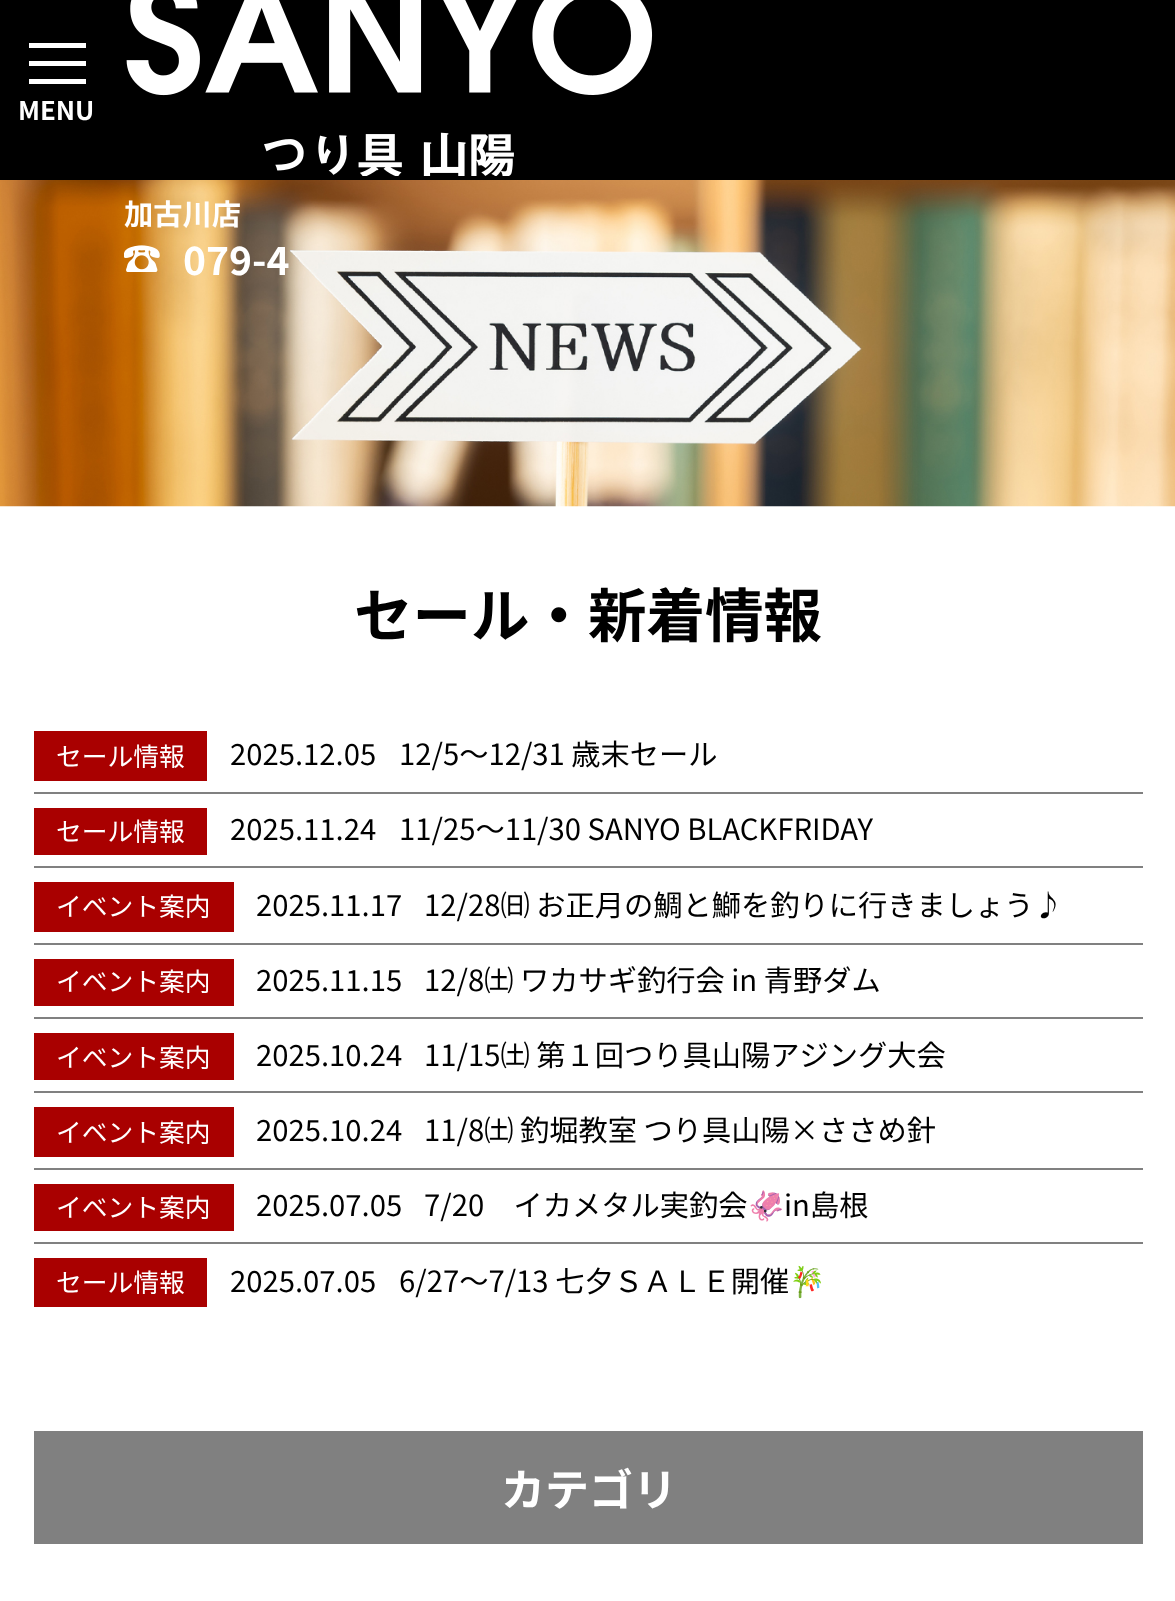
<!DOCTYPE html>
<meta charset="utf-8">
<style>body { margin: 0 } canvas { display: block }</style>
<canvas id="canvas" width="1175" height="1601"></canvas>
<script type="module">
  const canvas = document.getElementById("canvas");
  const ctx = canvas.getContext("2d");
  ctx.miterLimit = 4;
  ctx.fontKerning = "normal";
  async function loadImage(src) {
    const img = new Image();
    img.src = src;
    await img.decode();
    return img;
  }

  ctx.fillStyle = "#ffffff";
  ctx.fillRect(0, 0, 1175, 1601);
  ctx.fillStyle = "#000000";
  ctx.fillRect(0, 0, 1175, 180);
  ctx.fillStyle = "#ffffff";
  ctx.fillRect(29, 43, 57, 5);
  ctx.fillRect(29, 61, 57, 5);
  ctx.fillRect(29, 79, 57, 5);
  ctx.font = "bold 25.75px Noto Sans JP";
  ctx.fillText("MENU", 18, 120);
  ctx.drawImage(await loadImage("img1.png"), 126, 0, 527, 176);
  ctx.drawImage(await loadImage("img3.png"), 0, 180, 1175, 327);
  ctx.font = "bold 29.25px Noto Sans JP";
  ctx.fillText("加古川店", 124, 225);
  ctx.drawImage(await loadImage("img2.png"), 124, 245, 36, 27);
  ctx.font = "bold 39px Noto Sans JP";
  ctx.fillText("079-4", 183, 275);
  ctx.font = "bold 58.5px Noto Sans JP";
  ctx.fillStyle = "#000000";
  ctx.fillText("セール・新着情報", 354, 637);
  ctx.fillStyle = "#808080";
  ctx.fillRect(34, 792, 1109, 2);
  ctx.fillStyle = "#a90000";
  ctx.fillRect(34, 731, 173, 50);
  ctx.font = "25.75px Noto Sans JP";
  ctx.fillStyle = "#ffffff";
  ctx.fillText("セール情報", 56, 766);
  ctx.font = "29.25px Noto Sans JP";
  ctx.fillStyle = "#000000";
  ctx.fillText("2025.12.05", 230, 765);
  ctx.fillText("12/5～12/31 歳末セール", 399, 765);
  ctx.fillStyle = "#808080";
  ctx.fillRect(34, 866, 1109, 2);
  ctx.fillStyle = "#a90000";
  ctx.fillRect(34, 808, 173, 47);
  ctx.font = "25.75px Noto Sans JP";
  ctx.fillStyle = "#ffffff";
  ctx.fillText("セール情報", 56, 841);
  ctx.font = "29.25px Noto Sans JP";
  ctx.fillStyle = "#000000";
  ctx.fillText("2025.11.24", 230, 840);
  ctx.fillText("11/25～11/30 SANYO BLACKFRIDAY", 399, 840);
  ctx.fillStyle = "#808080";
  ctx.fillRect(34, 943, 1109, 2);
  ctx.fillStyle = "#a90000";
  ctx.fillRect(34, 882, 200, 50);
  ctx.font = "25.75px Noto Sans JP";
  ctx.fillStyle = "#ffffff";
  ctx.fillText("イベント案内", 56, 916);
  ctx.font = "29.25px Noto Sans JP";
  ctx.fillStyle = "#000000";
  ctx.fillText("2025.11.17", 256, 916);
  ctx.fillText("12/28㈰ お正月の鯛と鰤を釣りに行きましょう♪", 424, 916);
  ctx.fillStyle = "#808080";
  ctx.fillRect(34, 1017, 1109, 2);
  ctx.fillStyle = "#a90000";
  ctx.fillRect(34, 959, 200, 47);
  ctx.font = "25.75px Noto Sans JP";
  ctx.fillStyle = "#ffffff";
  ctx.fillText("イベント案内", 56, 991);
  ctx.font = "29.25px Noto Sans JP";
  ctx.fillStyle = "#000000";
  ctx.fillText("2025.11.15", 256, 991);
  ctx.fillText("12/8㈯ ワカサギ釣行会 in 青野ダム", 424, 991);
  ctx.fillStyle = "#808080";
  ctx.fillRect(34, 1091, 1109, 2);
  ctx.fillStyle = "#a90000";
  ctx.fillRect(34, 1033, 200, 47);
  ctx.font = "25.75px Noto Sans JP";
  ctx.fillStyle = "#ffffff";
  ctx.fillText("イベント案内", 56, 1067);
  ctx.font = "29.25px Noto Sans JP";
  ctx.fillStyle = "#000000";
  ctx.fillText("2025.10.24", 256, 1066);
  ctx.fillText("11/15㈯ 第１回つり具山陽アジング大会", 424, 1066);
  ctx.fillStyle = "#808080";
  ctx.fillRect(34, 1168, 1109, 2);
  ctx.fillStyle = "#a90000";
  ctx.fillRect(34, 1107, 200, 50);
  ctx.font = "25.75px Noto Sans JP";
  ctx.fillStyle = "#ffffff";
  ctx.fillText("イベント案内", 56, 1142);
  ctx.font = "29.25px Noto Sans JP";
  ctx.fillStyle = "#000000";
  ctx.fillText("2025.10.24", 256, 1141);
  ctx.fillText("11/8㈯ 釣堀教室 つり具山陽×ささめ針", 424, 1141);
  ctx.fillStyle = "#808080";
  ctx.fillRect(34, 1242, 1109, 2);
  ctx.fillStyle = "#a90000";
  ctx.fillRect(34, 1184, 200, 47);
  ctx.font = "25.75px Noto Sans JP";
  ctx.fillStyle = "#ffffff";
  ctx.fillText("イベント案内", 56, 1217);
  ctx.font = "29.25px Noto Sans JP";
  ctx.fillStyle = "#000000";
  ctx.fillText("2025.07.05", 256, 1216);
  ctx.fillText("7/20　イカメタル実釣会", 424, 1216);
  ctx.font = "29.25px Noto Color Emoji";
  ctx.fillText("🦑", 748, 1216);
  ctx.font = "29.25px Noto Sans JP";
  ctx.fillText("in島根", 784, 1216);
  ctx.fillStyle = "#a90000";
  ctx.fillRect(34, 1258, 173, 49);
  ctx.font = "25.75px Noto Sans JP";
  ctx.fillStyle = "#ffffff";
  ctx.fillText("セール情報", 56, 1292);
  ctx.font = "29.25px Noto Sans JP";
  ctx.fillStyle = "#000000";
  ctx.fillText("2025.07.05", 230, 1292);
  ctx.fillText("6/27～7/13 七夕ＳＡＬＥ開催", 399, 1292);
  ctx.font = "29.25px Noto Color Emoji";
  ctx.fillText("🎋", 789, 1292);
  ctx.fillStyle = "#808080";
  ctx.fillRect(34, 1431, 1109, 113);
  ctx.font = "bold 44px Noto Sans JP";
  ctx.fillStyle = "#ffffff";
  ctx.fillText("カテゴリ", 501, 1506);
</script>
